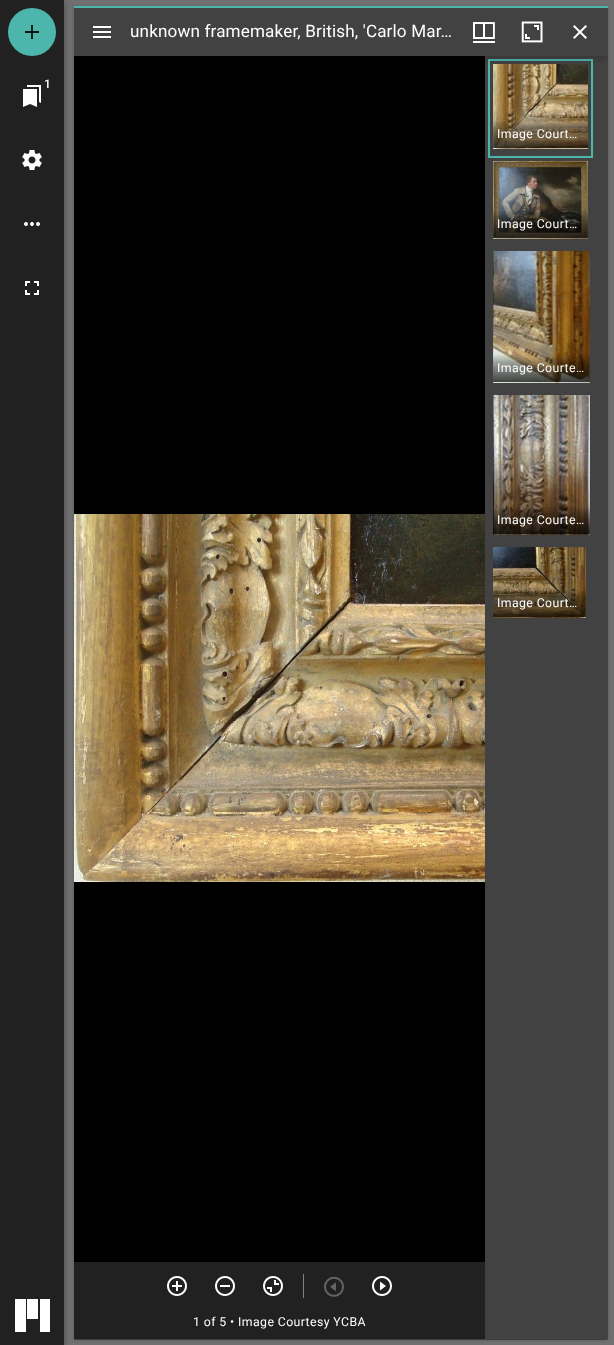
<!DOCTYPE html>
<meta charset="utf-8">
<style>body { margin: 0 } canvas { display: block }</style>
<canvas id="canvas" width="614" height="1345"></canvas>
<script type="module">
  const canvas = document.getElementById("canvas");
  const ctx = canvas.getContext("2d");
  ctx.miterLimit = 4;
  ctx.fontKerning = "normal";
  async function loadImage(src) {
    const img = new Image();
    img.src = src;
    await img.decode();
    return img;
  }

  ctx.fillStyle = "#707070";
  ctx.fillRect(0, 0, 614, 1345);
  ctx.fillStyle = "rgba(0, 0, 0, 0.2)";
  ctx.filter = "blur(0.5px)";
  ctx.beginPath();
  ctx.rect(75, 9, 532, 1331);
  ctx.fill();
  ctx.filter = "none";
  ctx.filter = "blur(0.5px)";
  ctx.beginPath();
  ctx.rect(74, 7, 534, 1333);
  ctx.fill();
  ctx.filter = "none";
  ctx.filter = "blur(1.5px)";
  ctx.beginPath();
  ctx.rect(74, 7, 534, 1333);
  ctx.fill();
  ctx.filter = "none";
  ctx.fillStyle = "#000000";
  ctx.fillRect(74, 56, 411, 1206);
  ctx.fillStyle = "#424242";
  ctx.fillRect(485, 56, 123, 1283);
  ctx.strokeStyle = "#4db6ac";
  ctx.lineWidth = 2;
  ctx.strokeRect(489, 60, 103, 97);
  ctx.drawImage(await loadImage("img10.png"), 493, 64, 95, 85);
  ctx.save();
  ctx.beginPath();
  ctx.rect(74, 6, 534, 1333);
  ctx.clip();
  ctx.fillStyle = "rgba(0, 0, 0, 0.14)";
  ctx.filter = "blur(2.5px)";
  ctx.beginPath();
  ctx.rect(74, 10, 534, 50);
  ctx.fill();
  ctx.filter = "none";
  ctx.restore();
  ctx.fillRect(74, 8, 534, 48);
  ctx.fillStyle = "#4db6ac";
  ctx.fillRect(74, 6, 534, 2);
  ctx.drawImage(await loadImage("img15.png"), 74, 514, 411, 368);
  ctx.fillStyle = "#212121";
  ctx.fillRect(74, 1262, 411, 77);
  ctx.fillStyle = "rgba(0, 0, 0, 0.12)";
  ctx.filter = "blur(5px)";
  ctx.beginPath();
  ctx.rect(0, 1, 64, 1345);
  ctx.fill();
  ctx.filter = "none";
  ctx.fillStyle = "rgba(0, 0, 0, 0.14)";
  ctx.filter = "blur(2.5px)";
  ctx.beginPath();
  ctx.rect(0, 4, 64, 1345);
  ctx.fill();
  ctx.filter = "none";
  ctx.fillStyle = "rgba(0, 0, 0, 0.2)";
  ctx.filter = "blur(2px)";
  ctx.beginPath();
  ctx.rect(1, 3, 62, 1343);
  ctx.fill();
  ctx.filter = "none";
  ctx.fillStyle = "#212121";
  ctx.fillRect(0, 0, 64, 1345);
  ctx.fillStyle = "#4db6ac";
  ctx.beginPath();
  ctx.arc(32, 32, 24, 0, Math.PI * 2);
  ctx.fill();
  ctx.drawImage(await loadImage("img1.png"), 25, 25, 14, 14);
  ctx.font = "500 12px Roboto";
  ctx.fillStyle = "#ffffff";
  ctx.fillText("1", 44, 88);
  ctx.drawImage(await loadImage("img2.png"), 23, 85, 18, 22);
  ctx.drawImage(await loadImage("img3.png"), 22, 150, 20, 20);
  ctx.drawImage(await loadImage("img4.png"), 24, 222, 16, 4);
  ctx.drawImage(await loadImage("img5.png"), 25, 281, 14, 14);
  ctx.fillRect(15, 1299, 11, 33);
  ctx.fillRect(40, 1299, 10, 33);
  ctx.fillRect(27, 1299, 11, 20);
  ctx.drawImage(await loadImage("img6.png"), 93, 26, 18, 12);
  ctx.letterSpacing = "0.15px";
  ctx.font = "17.1px Roboto";
  ctx.fillText("unknown framemaker, British, 'Carlo Mar…", 130, 37);
  ctx.drawImage(await loadImage("img7.png"), 473, 22, 22, 21);
  ctx.drawImage(await loadImage("img8.png"), 521, 21, 22, 22);
  ctx.drawImage(await loadImage("img9.png"), 573, 25, 14, 14);
  ctx.letterSpacing = "0.4px";
  ctx.font = "12.3px Roboto";
  ctx.fillText("Image Court…", 497, 138);
  ctx.drawImage(await loadImage("img11.png"), 493, 161, 95, 78);
  ctx.fillText("Image Court…", 497, 228);
  ctx.drawImage(await loadImage("img12.png"), 493, 251, 97, 132);
  ctx.fillText("Image Courte…", 497, 372);
  ctx.drawImage(await loadImage("img13.png"), 493, 395, 97, 140);
  ctx.fillText("Image Courte…", 497, 524);
  ctx.drawImage(await loadImage("img14.png"), 493, 547, 93, 71);
  ctx.fillText("Image Court…", 497, 607);
  ctx.drawImage(await loadImage("img16.png"), 167, 1276, 20, 20);
  ctx.drawImage(await loadImage("img17.png"), 215, 1276, 20, 20);
  ctx.drawImage(await loadImage("img18.png"), 263, 1276, 20, 20);
  ctx.fillStyle = "#808080";
  ctx.fillRect(303, 1274, 1, 24);
  ctx.drawImage(await loadImage("img19.png"), 324, 1276, 20, 21);
  ctx.drawImage(await loadImage("img20.png"), 372, 1276, 20, 20);
  ctx.fillStyle = "#ffffff";
  ctx.fillText("1 of 5 • Image Courtesy YCBA", 193, 1326);
</script>
